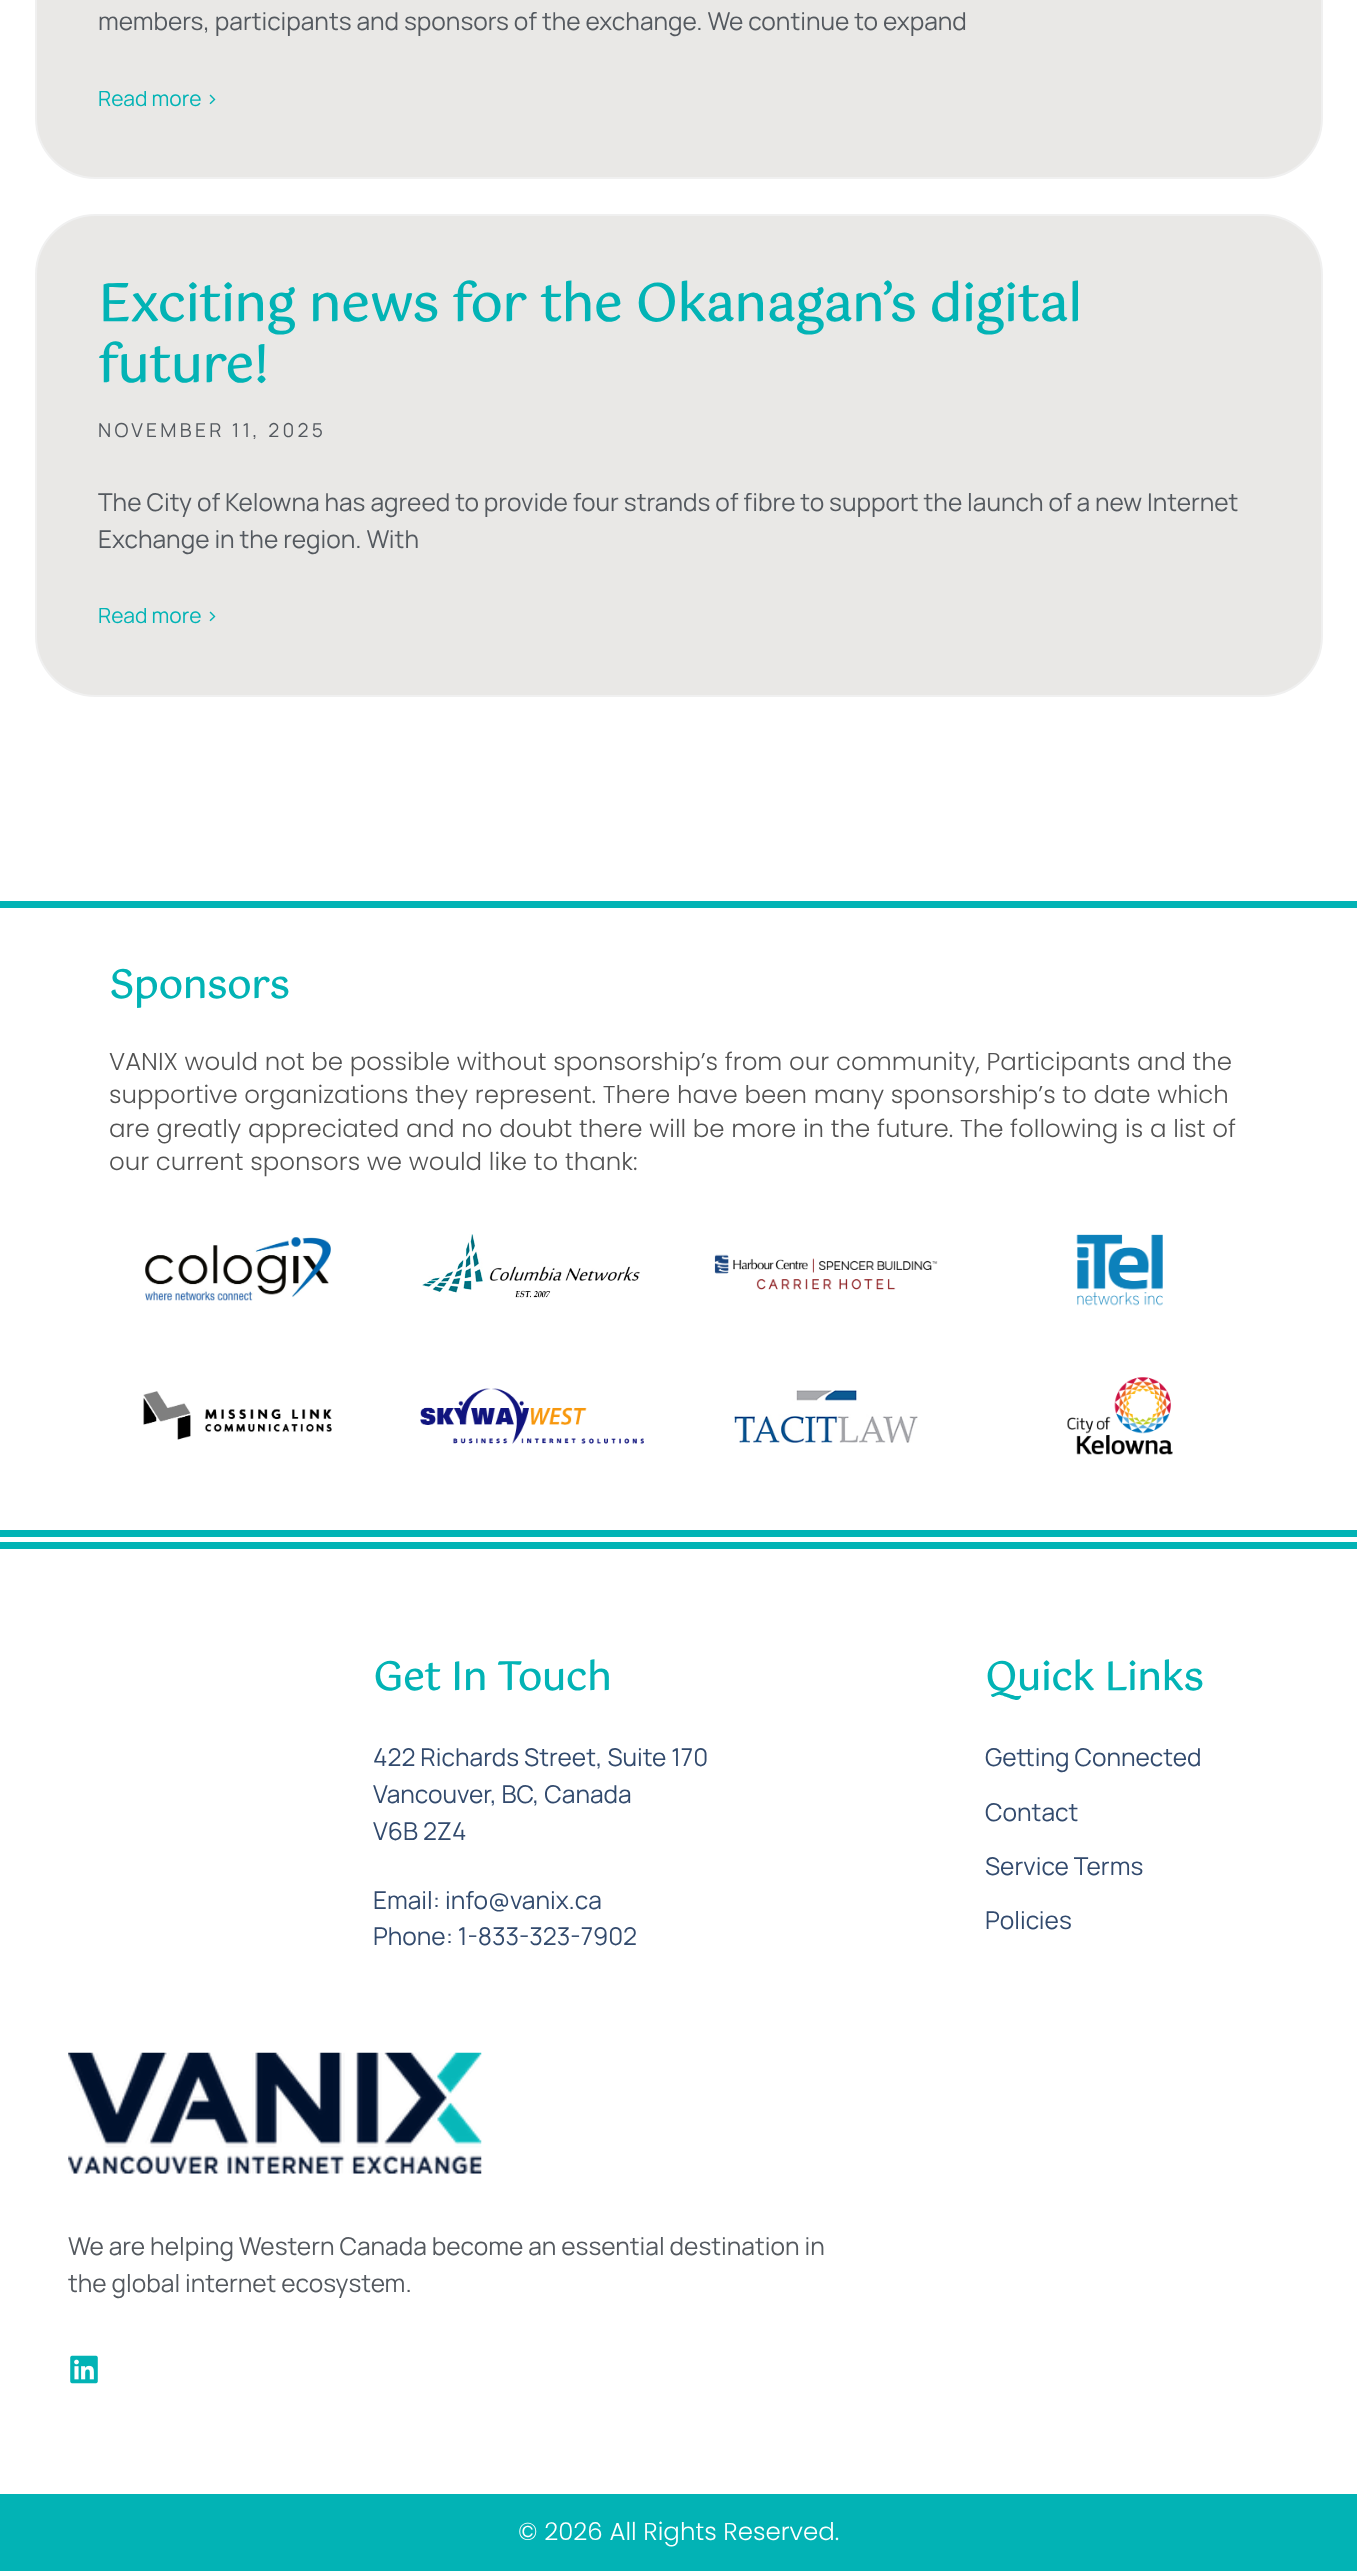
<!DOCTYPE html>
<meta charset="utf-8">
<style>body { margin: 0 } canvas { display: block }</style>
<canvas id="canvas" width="1357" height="2571"></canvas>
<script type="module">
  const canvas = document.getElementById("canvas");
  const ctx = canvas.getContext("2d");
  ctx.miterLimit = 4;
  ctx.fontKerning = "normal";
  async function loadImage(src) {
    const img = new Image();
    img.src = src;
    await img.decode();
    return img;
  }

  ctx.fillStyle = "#ffffff";
  ctx.fillRect(0, 0, 1357, 2571);
  ctx.fillStyle = "#e9e8e6";
  ctx.beginPath();
  ctx.roundRect(36, -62, 1286, 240, 60);
  ctx.fill();
  ctx.strokeStyle = "#f0f0f0";
  ctx.lineWidth = 2;
  ctx.stroke();
  ctx.font = "24.5px Manrope";
  ctx.fillStyle = "#54595f";
  ctx.fillText("members, participants and sponsors of the exchange. We continue to expand", 98, 30);
  ctx.font = "21px Manrope";
  ctx.fillStyle = "#02b3b5";
  ctx.fillText("Read more >", 98, 106);
  ctx.fillStyle = "#e9e8e6";
  ctx.beginPath();
  ctx.roundRect(36, 215, 1286, 481, 60);
  ctx.fill();
  ctx.stroke();
  ctx.font = "bold 50.75px Gotu";
  ctx.fillStyle = "#02b3b5";
  ctx.fillText("Exciting news for the Okanagan’s digital", 98, 321);
  ctx.fillText("future!", 98, 382);
  ctx.letterSpacing = "3.3px";
  ctx.font = "19.25px Manrope";
  ctx.fillStyle = "#54595f";
  ctx.fillText("NOVEMBER 11, 2025", 98, 437);
  ctx.letterSpacing = "0px";
  ctx.font = "24.5px Manrope";
  ctx.fillText("The City of Kelowna has agreed to provide four strands of fibre to support the launch of a new Internet", 98, 511);
  ctx.fillText("Exchange in the region. With", 98, 548);
  ctx.font = "21px Manrope";
  ctx.fillStyle = "#02b3b5";
  ctx.fillText("Read more >", 98, 623);
  ctx.fillRect(0, 901, 1357, 7);
  ctx.font = "bold 38.5px Gotu";
  ctx.fillText("Sponsors", 109, 998);
  ctx.font = "300 24.5px Poppins";
  ctx.fillStyle = "#535353";
  ctx.fillText("VANIX would not be possible without sponsorship’s from our community, Participants and the", 109, 1070);
  ctx.fillText("supportive organizations they represent. There have been many sponsorship’s to date which", 109, 1103);
  ctx.fillText("are greatly appreciated and no doubt there will be more in the future. The following is a list of", 109, 1137);
  ctx.fillText("our current sponsors we would like to thank:", 109, 1170);
  ctx.drawImage(await loadImage("img1.png"), 145, 1237, 186, 64);
  ctx.drawImage(await loadImage("img2.png"), 422, 1234, 218, 64);
  ctx.drawImage(await loadImage("img3.png"), 714, 1254, 224, 36);
  ctx.drawImage(await loadImage("img4.png"), 1076, 1234, 87, 72);
  ctx.drawImage(await loadImage("img5.png"), 143, 1391, 189, 49);
  ctx.drawImage(await loadImage("img6.png"), 420, 1388, 224, 56);
  ctx.drawImage(await loadImage("img7.png"), 734, 1390, 184, 53);
  ctx.drawImage(await loadImage("img8.png"), 1067, 1377, 106, 78);
  ctx.fillStyle = "#02b3b5";
  ctx.fillRect(0, 1530, 1357, 7);
  ctx.fillRect(0, 1542, 1357, 7);
  ctx.font = "bold 38.5px Gotu";
  ctx.fillText("Get In Touch", 373, 1690);
  ctx.font = "24.5px Manrope";
  ctx.fillStyle = "#324a6d";
  ctx.fillText("422 Richards Street, Suite 170", 373, 1766);
  ctx.fillText("Vancouver, BC, Canada", 373, 1803);
  ctx.fillText("V6B 2Z4", 373, 1840);
  ctx.fillText("Email: info@vanix.ca", 373, 1909);
  ctx.fillText("Phone: 1-833-323-7902", 373, 1945);
  ctx.font = "bold 38.5px Gotu";
  ctx.fillStyle = "#02b3b5";
  ctx.fillText("Quick Links", 985, 1690);
  ctx.font = "24.5px Manrope";
  ctx.fillStyle = "#324a6d";
  ctx.fillText("Getting Connected", 985, 1766);
  ctx.fillText("Contact", 985, 1821);
  ctx.fillText("Service Terms", 985, 1875);
  ctx.fillText("Policies", 985, 1929);
  ctx.drawImage(await loadImage("img9.png"), 68, 2052, 414, 122);
  ctx.fillStyle = "#54595f";
  ctx.fillText("We are helping Western Canada become an essential destination in", 68, 2255);
  ctx.fillText("the global internet ecosystem.", 68, 2292);
  ctx.drawImage(await loadImage("img10.png"), 70, 2355, 28, 29);
  ctx.fillStyle = "#02b3b5";
  ctx.fillRect(0, 2494, 1357, 77);
  ctx.font = "300 24.5px Poppins";
  ctx.fillStyle = "#ffffff";
  ctx.fillText("© 2026 All Rights Reserved.", 518, 2540);
</script>
